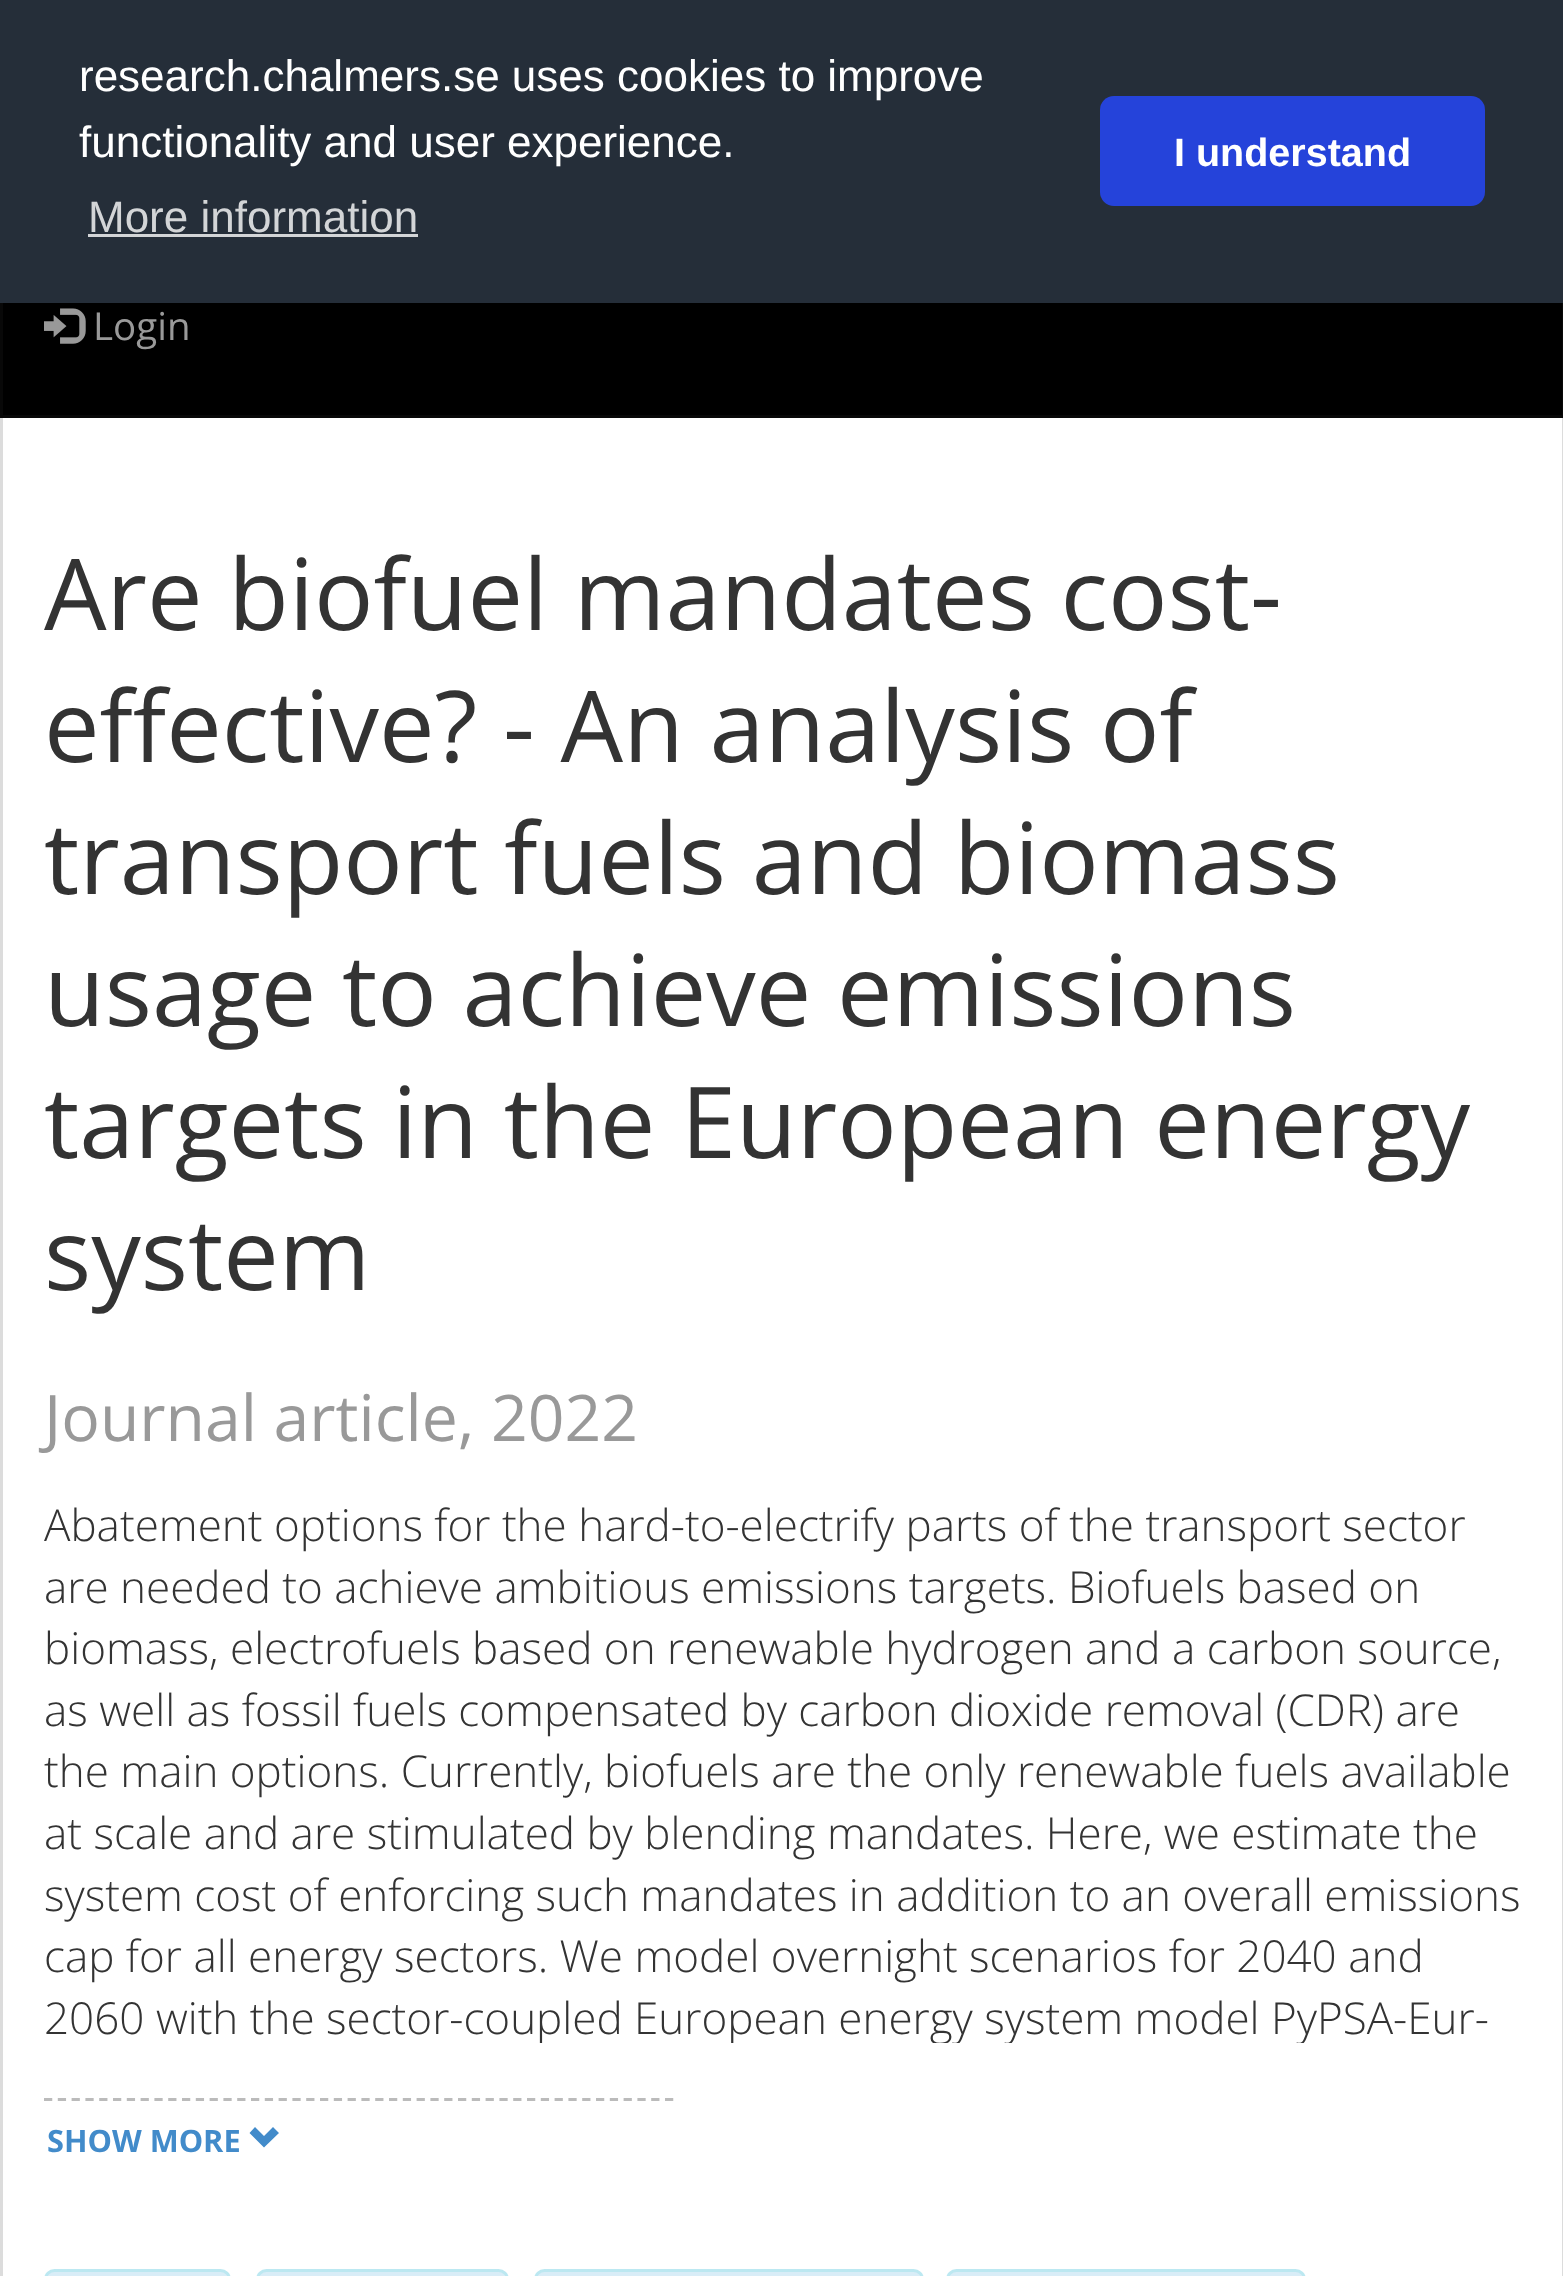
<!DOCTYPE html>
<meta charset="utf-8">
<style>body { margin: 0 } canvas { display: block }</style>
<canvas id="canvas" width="1563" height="2276"></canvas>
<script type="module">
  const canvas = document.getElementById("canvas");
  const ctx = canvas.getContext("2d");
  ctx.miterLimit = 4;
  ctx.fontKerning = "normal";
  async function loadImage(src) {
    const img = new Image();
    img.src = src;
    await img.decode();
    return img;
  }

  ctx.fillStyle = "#ffffff";
  ctx.fillRect(0, 0, 1563, 2276);
  ctx.fillStyle = "#000000";
  ctx.fillRect(3, 303, 1559, 112);
  ctx.strokeStyle = "#080808";
  ctx.lineWidth = 3;
  ctx.strokeRect(1.5, 1.5, 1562, 415);
  ctx.fillStyle = "#252e39";
  ctx.fillRect(0, 0, 1563, 303);
  ctx.font = "44px Liberation Sans";
  ctx.fillStyle = "#ffffff";
  ctx.fillText("research.chalmers.se uses cookies to improve", 79, 91);
  ctx.fillText("functionality and user experience.", 79, 157);
  ctx.fillStyle = "#d3d5d7";
  ctx.fillText("More information", 88, 232);
  ctx.fillRect(88, 234, 330, 3);
  ctx.fillStyle = "#2543da";
  ctx.beginPath();
  ctx.roundRect(1100, 96, 385, 110, 14);
  ctx.fill();
  ctx.font = "bold 39.5px Liberation Sans";
  ctx.fillStyle = "#ffffff";
  ctx.fillText("I understand", 1174, 166);
  ctx.drawImage(await loadImage("img1.png"), 44, 308, 42, 36);
  ctx.font = "38.5px Open Sans";
  ctx.fillStyle = "#999999";
  ctx.fillText("Login", 93, 340);
  ctx.fillStyle = "#dcdcdc";
  ctx.fillRect(1562, 418, 1, 1858);
  ctx.fillRect(0, 418, 3, 1858);
  ctx.font = "99px Open Sans";
  ctx.fillStyle = "#333333";
  ctx.fillText("Are biofuel mandates cost-", 44, 630);
  ctx.fillText("effective? - An analysis of", 44, 762);
  ctx.fillText("transport fuels and biomass", 44, 894);
  ctx.fillText("usage to achieve emissions", 44, 1026);
  ctx.fillText("targets in the European energy", 44, 1158);
  ctx.fillText("system", 44, 1290);
  ctx.font = "64.25px Open Sans";
  ctx.fillStyle = "#999999";
  ctx.fillText("Journal article, 2022", 44, 1441);
  ctx.font = "300 44px Open Sans";
  ctx.fillStyle = "#333333";
  ctx.fillText("Abatement options for the hard-to-electrify parts of the transport sector", 44, 1541);
  ctx.fillText("are needed to achieve ambitious emissions targets. Biofuels based on", 44, 1603);
  ctx.fillText("biomass, electrofuels based on renewable hydrogen and a carbon source,", 44, 1664);
  ctx.fillText("as well as fossil fuels compensated by carbon dioxide removal (CDR) are", 44, 1726);
  ctx.fillText("the main options. Currently, biofuels are the only renewable fuels available", 44, 1787);
  ctx.fillText("at scale and are stimulated by blending mandates. Here, we estimate the", 44, 1849);
  ctx.fillText("system cost of enforcing such mandates in addition to an overall emissions", 44, 1911);
  ctx.fillText("cap for all energy sectors. We model overnight scenarios for 2040 and", 44, 1972);
  ctx.save();
  ctx.beginPath();
  ctx.rect(44, 1493, 1477, 550);
  ctx.clip();
  ctx.fillText("2060 with the sector-coupled European energy system model PyPSA-Eur-", 44, 2034);
  ctx.restore();
  ctx.beginPath();
  ctx.moveTo(44, 2099.5);
  ctx.lineTo(674, 2099.5);
  ctx.strokeStyle = "#bbbbbb";
  ctx.lineWidth = 2.8;
  ctx.setLineDash([8.25, 5.55]);
  ctx.stroke();
  ctx.font = "bold 30.75px Open Sans";
  ctx.fillStyle = "#428bca";
  ctx.fillText("SHOW MORE", 47, 2152);
  ctx.beginPath();
  ctx.moveTo(249.5, 2133);
  ctx.lineTo(264, 2147.5);
  ctx.lineTo(279, 2133);
  ctx.lineTo(273, 2127);
  ctx.lineTo(264, 2136);
  ctx.lineTo(255, 2127);
  ctx.closePath();
  ctx.fill();
  ctx.fillStyle = "#d9edf7";
  ctx.beginPath();
  ctx.roundRect(45.5, 2270.5, 184, 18, 9.5);
  ctx.fill();
  ctx.strokeStyle = "#bce8f1";
  ctx.lineWidth = 3;
  ctx.setLineDash([]);
  ctx.stroke();
  ctx.beginPath();
  ctx.roundRect(257.5, 2270.5, 250, 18, 9.5);
  ctx.fill();
  ctx.stroke();
  ctx.beginPath();
  ctx.roundRect(535.5, 2270.5, 387, 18, 9.5);
  ctx.fill();
  ctx.stroke();
  ctx.beginPath();
  ctx.roundRect(947.5, 2270.5, 357, 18, 9.5);
  ctx.fill();
  ctx.stroke();
</script>
